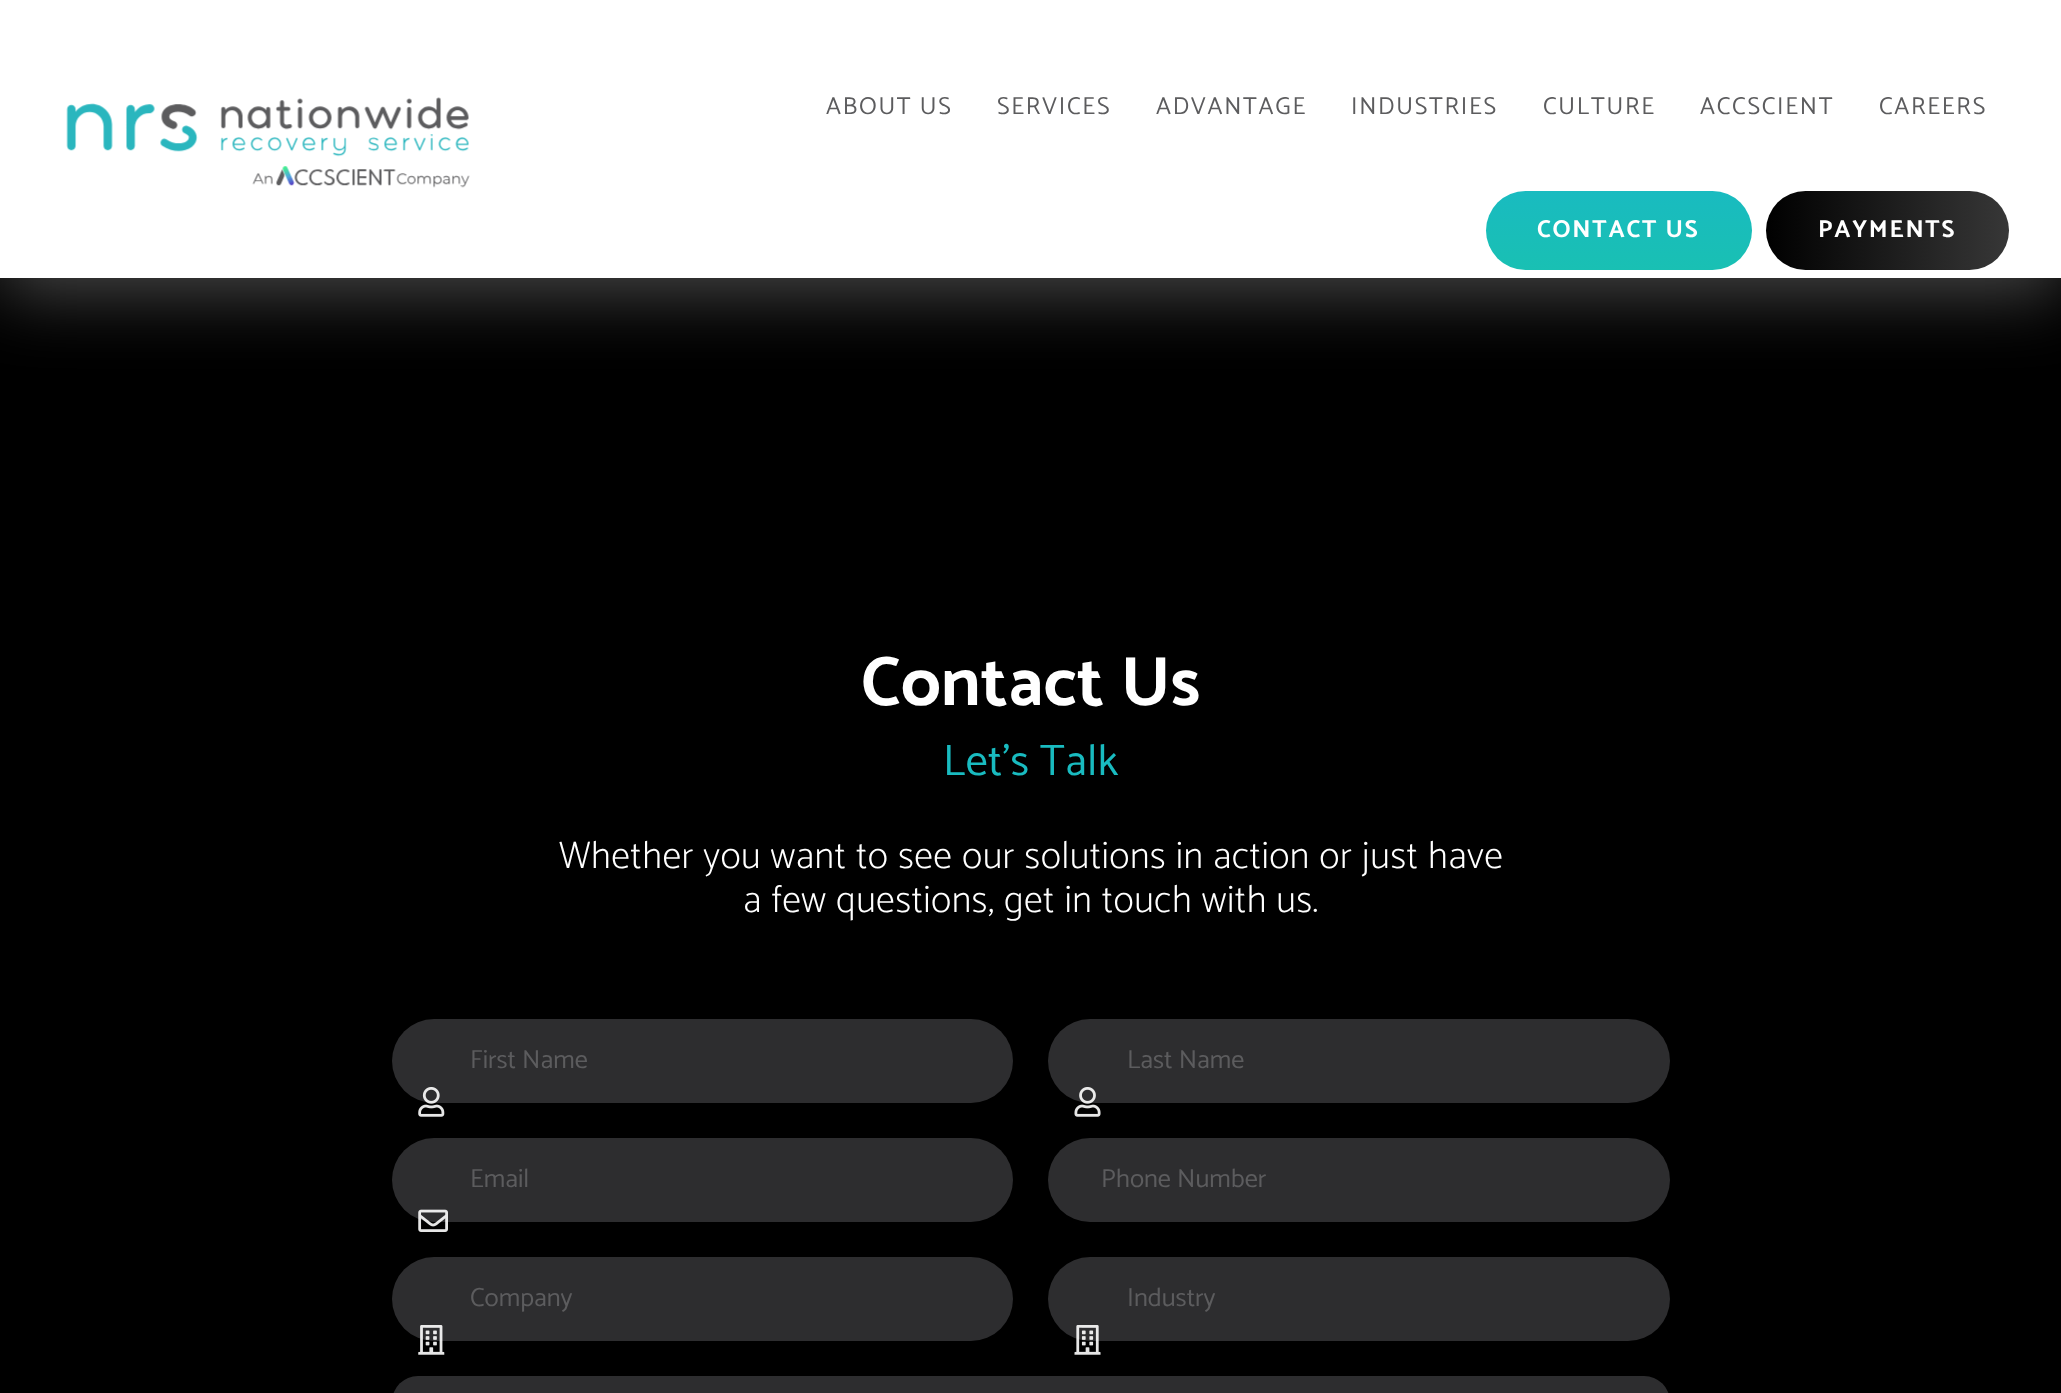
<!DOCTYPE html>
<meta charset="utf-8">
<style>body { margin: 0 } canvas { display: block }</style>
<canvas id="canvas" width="2061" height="1393"></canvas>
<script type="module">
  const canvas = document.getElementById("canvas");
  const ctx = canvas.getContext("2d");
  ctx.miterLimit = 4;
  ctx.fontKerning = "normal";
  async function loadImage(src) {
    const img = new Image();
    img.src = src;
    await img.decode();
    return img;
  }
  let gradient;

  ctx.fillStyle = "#000000";
  ctx.fillRect(0, 0, 2061, 1393);
  ctx.fillStyle = "rgba(135, 135, 135, 0.54)";
  ctx.filter = "blur(35px)";
  ctx.beginPath();
  ctx.rect(0, 14, 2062, 278);
  ctx.fill();
  ctx.filter = "none";
  ctx.fillStyle = "#ffffff";
  ctx.fillRect(0, 0, 2061, 278);
  ctx.drawImage(await loadImage("img1.png"), 66, 97, 404, 91);
  ctx.letterSpacing = "1.75px";
  ctx.font = "24.5px Catamaran";
  ctx.fillStyle = "#5c5c5e";
  ctx.fillText("ABOUT US", 826, 114);
  ctx.fillText("SERVICES", 997, 114);
  ctx.fillText("ADVANTAGE", 1156, 114);
  ctx.fillText("INDUSTRIES", 1351, 114);
  ctx.fillText("CULTURE", 1543, 114);
  ctx.fillText("ACCSCIENT", 1700, 114);
  ctx.fillText("CAREERS", 1879, 114);
  gradient = ctx.createLinearGradient(1619, 191, 1619, 270);
  gradient.addColorStop(0, "#19bbc0");
  gradient.addColorStop(1, "#19c0b3");
  ctx.fillStyle = gradient;
  ctx.beginPath();
  ctx.roundRect(1486, 191, 266, 79, 39.5);
  ctx.fill();
  ctx.font = "bold 24.5px Catamaran";
  ctx.fillStyle = "#ffffff";
  ctx.fillText("CONTACT US", 1537, 237);
  gradient = ctx.createLinearGradient(1766, 230, 2009, 230);
  gradient.addColorStop(0, "#000000");
  gradient.addColorStop(1, "#373737");
  ctx.fillStyle = gradient;
  ctx.beginPath();
  ctx.roundRect(1766, 191, 243, 79, 39.5);
  ctx.fill();
  ctx.fillStyle = "#ffffff";
  ctx.fillText("PAYMENTS", 1818, 237);
  ctx.letterSpacing = "0.42px";
  ctx.font = "bold 70px Catamaran";
  ctx.fillText("Contact Us", 861, 705);
  ctx.font = "44px Catamaran";
  ctx.fillStyle = "#19bbc0";
  ctx.fillText("Let’s Talk", 943, 775);
  ctx.font = "200 38.5px Catamaran";
  ctx.fillStyle = "#ffffff";
  ctx.fillText("Whether you want to see our solutions in action or just have", 559, 868);
  ctx.fillText("a few questions, get in touch with us.", 743, 912);
  ctx.fillStyle = "#2d2d2f";
  ctx.beginPath();
  ctx.roundRect(392, 1019, 621, 84, 42);
  ctx.fill();
  ctx.letterSpacing = "0px";
  ctx.font = "26.25px Catamaran";
  ctx.fillStyle = "#5c5c5e";
  ctx.fillText("First Name", 470, 1068);
  ctx.drawImage(await loadImage("img2.png"), 418, 1087, 27, 30);
  ctx.fillStyle = "#2d2d2f";
  ctx.beginPath();
  ctx.roundRect(392, 1138, 621, 84, 42);
  ctx.fill();
  ctx.fillStyle = "#5c5c5e";
  ctx.fillText("Email", 470, 1187);
  ctx.drawImage(await loadImage("img3.png"), 418, 1209, 30, 23);
  ctx.fillStyle = "#2d2d2f";
  ctx.beginPath();
  ctx.roundRect(392, 1257, 621, 84, 42);
  ctx.fill();
  ctx.fillStyle = "#5c5c5e";
  ctx.fillText("Company", 470, 1306);
  ctx.drawImage(await loadImage("img4.png"), 418, 1325, 27, 30);
  ctx.fillStyle = "#2d2d2f";
  ctx.beginPath();
  ctx.roundRect(1048, 1019, 622, 84, 42);
  ctx.fill();
  ctx.fillStyle = "#5c5c5e";
  ctx.fillText("Last Name", 1127, 1068);
  ctx.drawImage(await loadImage("img5.png"), 1074, 1087, 27, 30);
  ctx.fillStyle = "#2d2d2f";
  ctx.beginPath();
  ctx.roundRect(1048, 1138, 622, 84, 42);
  ctx.fill();
  ctx.fillStyle = "#5c5c5e";
  ctx.fillText("Phone Number", 1101, 1187);
  ctx.fillStyle = "#2d2d2f";
  ctx.beginPath();
  ctx.roundRect(1048, 1257, 622, 84, 42);
  ctx.fill();
  ctx.fillStyle = "#5c5c5e";
  ctx.fillText("Industry", 1127, 1306);
  ctx.drawImage(await loadImage("img6.png"), 1074, 1325, 27, 30);
  ctx.fillStyle = "#2d2d2f";
  ctx.beginPath();
  ctx.roundRect(392, 1376, 1278, 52, 35);
  ctx.fill();
</script>
